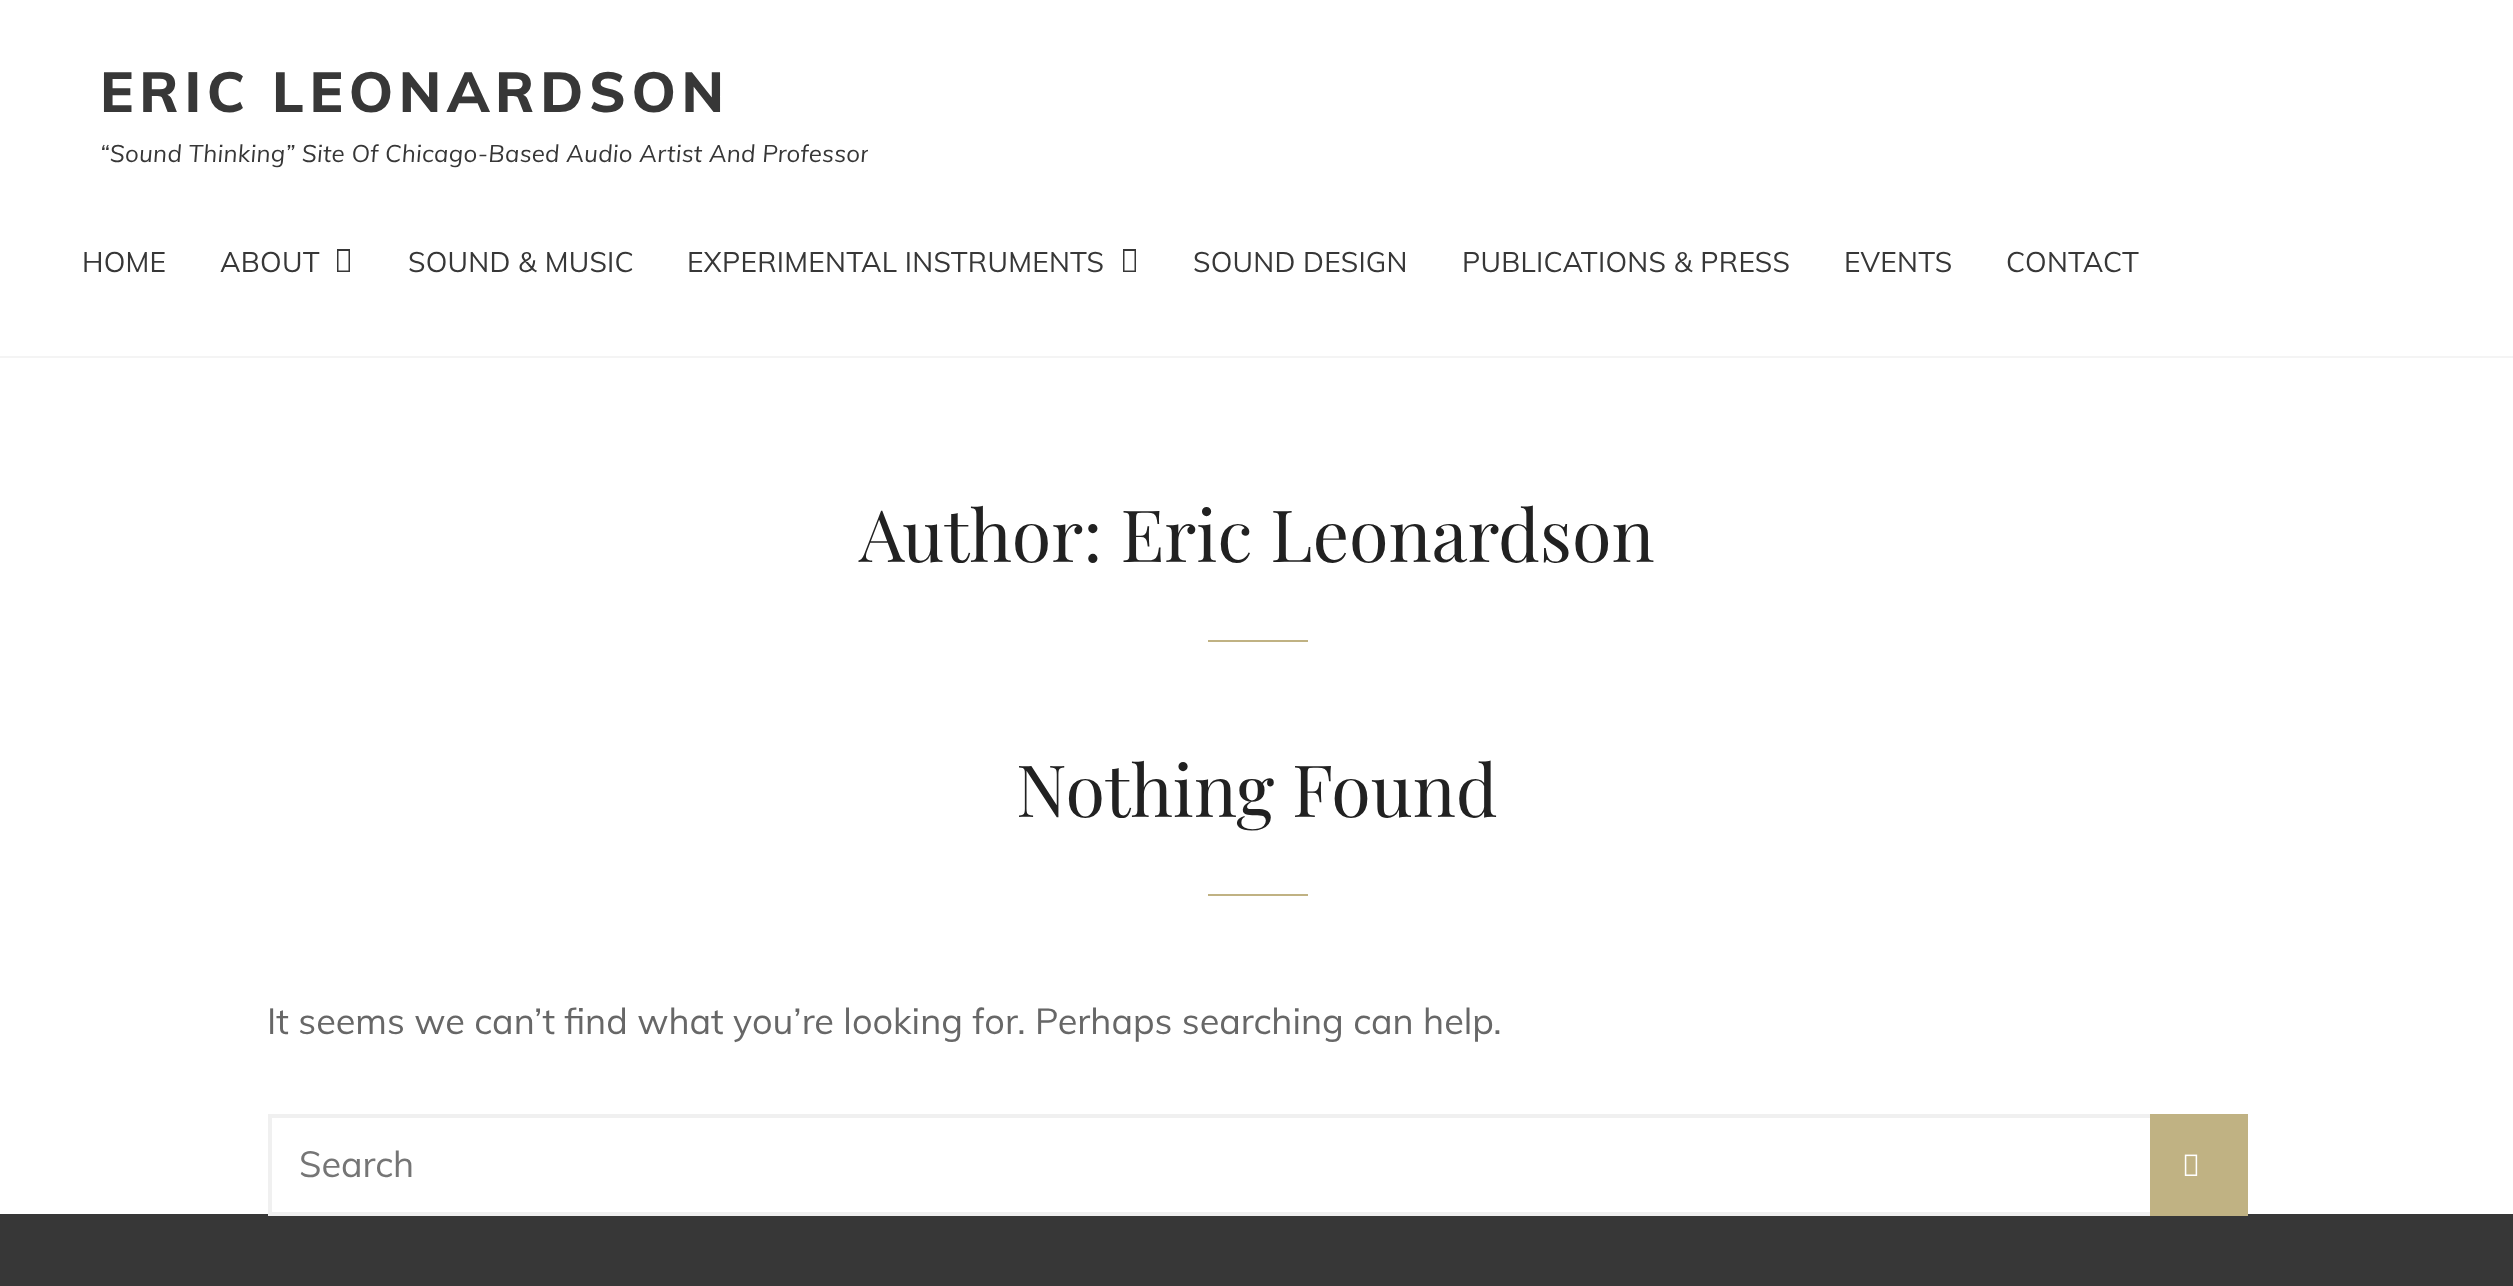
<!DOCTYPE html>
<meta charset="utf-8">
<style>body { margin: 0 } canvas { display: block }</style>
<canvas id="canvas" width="2513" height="1286"></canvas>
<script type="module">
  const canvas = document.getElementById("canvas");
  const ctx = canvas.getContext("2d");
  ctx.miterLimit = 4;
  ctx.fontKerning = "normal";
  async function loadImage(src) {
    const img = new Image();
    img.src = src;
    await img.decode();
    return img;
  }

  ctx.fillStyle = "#ffffff";
  ctx.fillRect(0, 0, 2513, 1286);
  ctx.fillStyle = "#f4f4f4";
  ctx.fillRect(0, 356, 2513, 2);
  ctx.letterSpacing = "5.6px";
  ctx.font = "800 56px Muli";
  ctx.fillStyle = "#373737";
  ctx.fillText("ERIC LEONARDSON", 100, 112);
  ctx.save();
  ctx.beginPath();
  ctx.rect(100, 56, 768, 112);
  ctx.clip();
  ctx.letterSpacing = "0.25px";
  ctx.font = "italic 24px Muli";
  ctx.fillText("“Sound Thinking” Site Of Chicago-Based Audio Artist And Professor", 100, 162);
  ctx.restore();
  ctx.letterSpacing = "0.25px";
  ctx.font = "28px Muli";
  ctx.fillText("HOME", 82, 272);
  ctx.fillText("ABOUT", 220, 272);
  ctx.beginPath();
  ctx.moveTo(337, 272);
  ctx.lineTo(337, 249);
  ctx.lineTo(350, 249);
  ctx.lineTo(350, 272);
  ctx.closePath();
  ctx.moveTo(338.5, 270.5);
  ctx.lineTo(348.5, 270.5);
  ctx.lineTo(348.5, 251);
  ctx.lineTo(338.5, 251);
  ctx.closePath();
  ctx.fill();
  ctx.fillText("SOUND & MUSIC", 408, 272);
  ctx.fillText("EXPERIMENTAL INSTRUMENTS", 687, 272);
  ctx.beginPath();
  ctx.moveTo(1123, 272);
  ctx.lineTo(1123, 249);
  ctx.lineTo(1136, 249);
  ctx.lineTo(1136, 272);
  ctx.closePath();
  ctx.moveTo(1124.5, 270.5);
  ctx.lineTo(1134.5, 270.5);
  ctx.lineTo(1134.5, 251);
  ctx.lineTo(1124.5, 251);
  ctx.closePath();
  ctx.fill();
  ctx.fillText("SOUND DESIGN", 1193, 272);
  ctx.fillText("PUBLICATIONS & PRESS", 1462, 272);
  ctx.fillText("EVENTS", 1844, 272);
  ctx.fillText("CONTACT", 2006, 272);
  ctx.letterSpacing = "0px";
  ctx.font = "72px Playfair Display";
  ctx.fillStyle = "#212121";
  ctx.fillText("Author: Eric Leonardson", 859, 562);
  ctx.fillStyle = "#c0b283";
  ctx.fillRect(1208, 640, 100, 2);
  ctx.fillStyle = "#212121";
  ctx.fillText("Nothing Found", 1016, 817);
  ctx.fillStyle = "#c0b283";
  ctx.fillRect(1208, 894, 100, 2);
  ctx.font = "36px Muli";
  ctx.fillStyle = "#676767";
  ctx.fillText("It seems we can’t find what you’re looking for. Perhaps searching can help.", 267, 1034);
  ctx.fillStyle = "#373737";
  ctx.fillRect(0, 1214, 2513, 72);
  ctx.strokeStyle = "#f0f0f0";
  ctx.lineWidth = 4;
  ctx.strokeRect(270, 1116, 1976, 98);
  ctx.fillStyle = "#757575";
  ctx.fillText("Search", 299, 1177);
  ctx.fillStyle = "#c0b283";
  ctx.fillRect(2150, 1114, 98, 102);
  ctx.drawImage(await loadImage("img1.png"), 2184, 1154, 14, 22);
</script>
